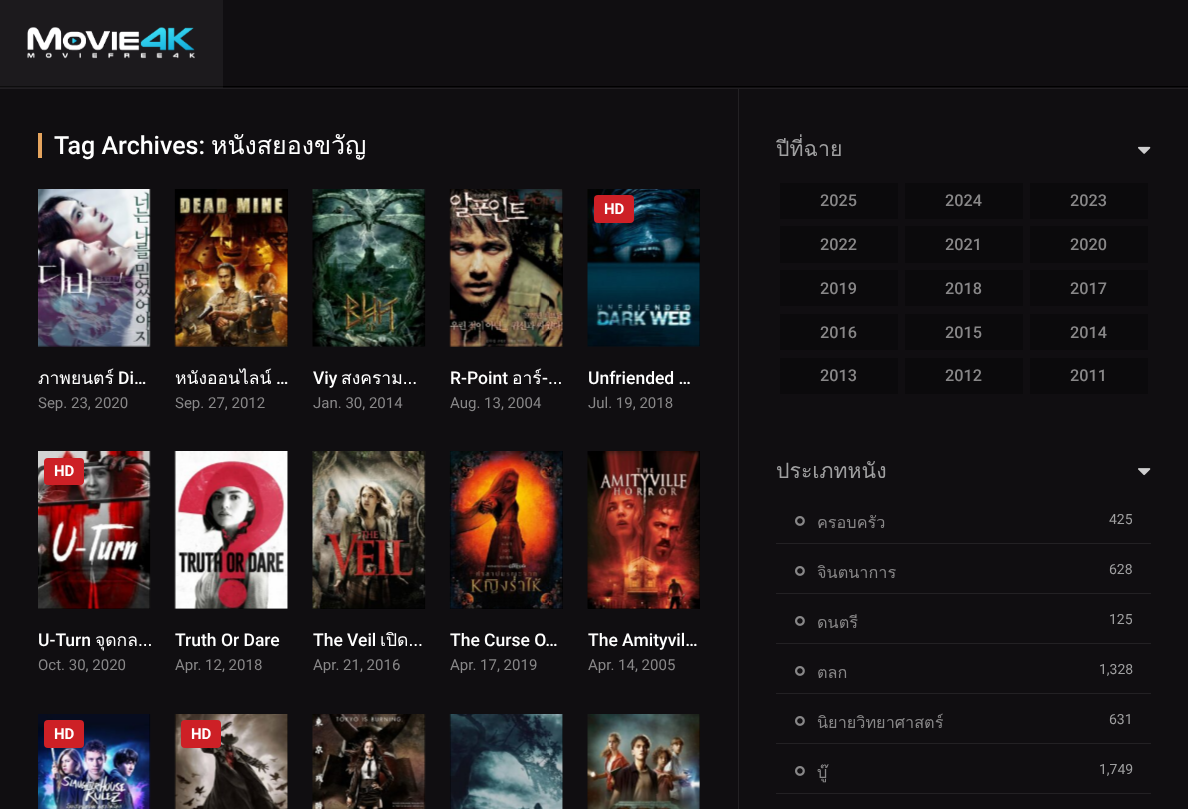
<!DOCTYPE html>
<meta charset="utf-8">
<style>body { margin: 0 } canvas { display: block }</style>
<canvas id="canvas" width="1188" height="809"></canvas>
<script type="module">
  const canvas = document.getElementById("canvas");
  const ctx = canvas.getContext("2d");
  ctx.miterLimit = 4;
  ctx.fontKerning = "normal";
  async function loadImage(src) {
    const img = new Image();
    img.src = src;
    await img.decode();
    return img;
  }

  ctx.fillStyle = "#160023";
  ctx.fillRect(0, 0, 1188, 809);
  ctx.fillStyle = "rgba(15, 15, 15, 0.9)";
  ctx.fillRect(0, 0, 1188, 88);
  ctx.fillStyle = "#000000";
  ctx.fillRect(0, 86, 1188, 1);
  ctx.fillStyle = "rgba(255, 255, 255, 0.05)";
  ctx.fillRect(0, 0, 223, 88);
  ctx.drawImage(await loadImage("img1.png"), 27, 27, 168, 32);
  ctx.fillStyle = "#100e11";
  ctx.fillRect(0, 89, 1188, 720);
  ctx.fillStyle = "#211f22";
  ctx.fillRect(0, 88, 1188, 1);
  ctx.fillStyle = "#232124";
  ctx.fillRect(738, 89, 1, 720);
  ctx.fillStyle = "#e5a45e";
  ctx.fillRect(38, 133, 4, 25);
  ctx.font = "500 25px Roboto";
  ctx.fillStyle = "#ffffff";
  ctx.fillText("Tag Archives:", 54, 154);
  ctx.font = "25px Loma";
  ctx.fillText("หนังสยองขวัญ", 211, 154);
  ctx.fillStyle = "#000000";
  ctx.fillRect(38, 189, 112, 157);
  ctx.drawImage(await loadImage("img2.png"), 38, 189, 113, 158);
  ctx.font = "17.5px Loma";
  ctx.fillStyle = "#ffffff";
  ctx.fillText("ภาพยนตร์", 38, 384);
  ctx.font = "500 17.5px Roboto";
  ctx.fillText("Di…", 118, 384);
  ctx.font = "15px Roboto";
  ctx.fillStyle = "#888788";
  ctx.fillText("Sep. 23, 2020", 38, 408);
  ctx.fillStyle = "#000000";
  ctx.fillRect(175, 189, 113, 157);
  ctx.drawImage(await loadImage("img3.png"), 174, 189, 114, 158);
  ctx.font = "17.5px Loma";
  ctx.fillStyle = "#ffffff";
  ctx.fillText("หนังออนไลน์", 175, 384);
  ctx.font = "500 17.5px Roboto";
  ctx.fillText("…", 276, 384);
  ctx.font = "15px Roboto";
  ctx.fillStyle = "#888788";
  ctx.fillText("Sep. 27, 2012", 175, 408);
  ctx.fillStyle = "#000000";
  ctx.fillRect(313, 189, 112, 157);
  ctx.drawImage(await loadImage("img4.png"), 312, 189, 114, 158);
  ctx.font = "500 17.5px Roboto";
  ctx.fillStyle = "#ffffff";
  ctx.fillText("Viy", 313, 384);
  ctx.font = "17.5px Loma";
  ctx.fillText("สงคราม…", 341, 384);
  ctx.font = "15px Roboto";
  ctx.fillStyle = "#888788";
  ctx.fillText("Jan. 30, 2014", 313, 408);
  ctx.fillStyle = "#000000";
  ctx.fillRect(450, 189, 113, 157);
  ctx.drawImage(await loadImage("img5.png"), 449, 189, 114, 158);
  ctx.font = "500 17.5px Roboto";
  ctx.fillStyle = "#ffffff";
  ctx.fillText("R-Point", 450, 384);
  ctx.font = "17.5px Loma";
  ctx.fillText("อาร์", 512, 384);
  ctx.font = "500 17.5px Roboto";
  ctx.fillText("-", 542, 384);
  ctx.font = "17.5px Loma";
  ctx.fillText("…", 548, 384);
  ctx.font = "15px Roboto";
  ctx.fillStyle = "#888788";
  ctx.fillText("Aug. 13, 2004", 450, 408);
  ctx.fillStyle = "#000000";
  ctx.fillRect(588, 189, 112, 157);
  ctx.drawImage(await loadImage("img6.png"), 587, 189, 113, 158);
  ctx.fillStyle = "#cd2026";
  ctx.beginPath();
  ctx.roundRect(594, 195, 40, 28, 4);
  ctx.fill();
  ctx.font = "bold 15px Roboto";
  ctx.fillStyle = "#ffffff";
  ctx.fillText("HD", 604, 214);
  ctx.font = "500 17.5px Roboto";
  ctx.fillText("Unfriended …", 588, 384);
  ctx.font = "15px Roboto";
  ctx.fillStyle = "#888788";
  ctx.fillText("Jul. 19, 2018", 588, 408);
  ctx.fillStyle = "#000000";
  ctx.fillRect(38, 451, 112, 158);
  ctx.drawImage(await loadImage("img7.png"), 38, 451, 113, 158);
  ctx.fillStyle = "#cd2026";
  ctx.beginPath();
  ctx.roundRect(44, 458, 40, 27, 4);
  ctx.fill();
  ctx.font = "bold 15px Roboto";
  ctx.fillStyle = "#ffffff";
  ctx.fillText("HD", 54, 476);
  ctx.font = "500 17.5px Roboto";
  ctx.fillText("U-Turn", 38, 646);
  ctx.font = "17.5px Loma";
  ctx.fillText("จุดกล…", 95, 646);
  ctx.font = "15px Roboto";
  ctx.fillStyle = "#888788";
  ctx.fillText("Oct. 30, 2020", 38, 670);
  ctx.fillStyle = "#000000";
  ctx.fillRect(175, 451, 113, 158);
  ctx.drawImage(await loadImage("img8.png"), 174, 451, 114, 158);
  ctx.font = "500 17.5px Roboto";
  ctx.fillStyle = "#ffffff";
  ctx.fillText("Truth Or Dare", 175, 646);
  ctx.font = "15px Roboto";
  ctx.fillStyle = "#888788";
  ctx.fillText("Apr. 12, 2018", 175, 670);
  ctx.fillStyle = "#000000";
  ctx.fillRect(313, 451, 112, 158);
  ctx.drawImage(await loadImage("img9.png"), 312, 451, 114, 158);
  ctx.font = "500 17.5px Roboto";
  ctx.fillStyle = "#ffffff";
  ctx.fillText("The Veil", 313, 646);
  ctx.font = "17.5px Loma";
  ctx.fillText("เปิด…", 380, 646);
  ctx.font = "15px Roboto";
  ctx.fillStyle = "#888788";
  ctx.fillText("Apr. 21, 2016", 313, 670);
  ctx.fillStyle = "#000000";
  ctx.fillRect(450, 451, 113, 158);
  ctx.drawImage(await loadImage("img10.png"), 449, 451, 114, 158);
  ctx.font = "500 17.5px Roboto";
  ctx.fillStyle = "#ffffff";
  ctx.fillText("The Curse O…", 450, 646);
  ctx.font = "15px Roboto";
  ctx.fillStyle = "#888788";
  ctx.fillText("Apr. 17, 2019", 450, 670);
  ctx.fillStyle = "#000000";
  ctx.fillRect(588, 451, 112, 158);
  ctx.drawImage(await loadImage("img11.png"), 587, 451, 113, 158);
  ctx.font = "500 17.5px Roboto";
  ctx.fillStyle = "#ffffff";
  ctx.fillText("The Amityvil…", 588, 646);
  ctx.font = "15px Roboto";
  ctx.fillStyle = "#888788";
  ctx.fillText("Apr. 14, 2005", 588, 670);
  ctx.fillStyle = "#000000";
  ctx.fillRect(149, 714, 1, 95);
  ctx.drawImage(await loadImage("img12.png"), 38, 714, 113, 95);
  ctx.fillStyle = "#cd2026";
  ctx.beginPath();
  ctx.roundRect(44, 720, 40, 28, 4);
  ctx.fill();
  ctx.font = "bold 15px Roboto";
  ctx.fillStyle = "#ffffff";
  ctx.fillText("HD", 54, 739);
  ctx.fillStyle = "#000000";
  ctx.fillRect(175, 714, 113, 95);
  ctx.drawImage(await loadImage("img13.png"), 174, 714, 114, 95);
  ctx.fillStyle = "#cd2026";
  ctx.beginPath();
  ctx.roundRect(181, 720, 40, 28, 4);
  ctx.fill();
  ctx.fillStyle = "#ffffff";
  ctx.fillText("HD", 191, 739);
  ctx.fillStyle = "#000000";
  ctx.fillRect(424, 714, 1, 95);
  ctx.drawImage(await loadImage("img14.png"), 312, 714, 114, 95);
  ctx.fillRect(450, 714, 113, 95);
  ctx.drawImage(await loadImage("img15.png"), 449, 714, 114, 95);
  ctx.fillRect(699, 714, 1, 95);
  ctx.drawImage(await loadImage("img16.png"), 587, 714, 113, 95);
  ctx.save();
  ctx.beginPath();
  ctx.rect(776, 126, 375, 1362);
  ctx.clip();
  ctx.font = "21.25px Loma";
  ctx.fillStyle = "#9f9fa0";
  ctx.fillText("ปีที่ฉาย", 776, 156);
  ctx.restore();
  ctx.drawImage(await loadImage("img17.png"), 1138, 146, 13, 8);
  ctx.fillStyle = "#0b0a0c";
  ctx.fillRect(780, 183, 118, 36);
  ctx.font = "500 16.25px Roboto";
  ctx.fillStyle = "#888788";
  ctx.fillText("2025", 820, 206);
  ctx.fillStyle = "#0b0a0c";
  ctx.fillRect(905, 183, 118, 36);
  ctx.fillStyle = "#888788";
  ctx.fillText("2024", 945, 206);
  ctx.fillStyle = "#0b0a0c";
  ctx.fillRect(1030, 183, 118, 36);
  ctx.fillStyle = "#888788";
  ctx.fillText("2023", 1070, 206);
  ctx.fillStyle = "#0b0a0c";
  ctx.fillRect(780, 226, 118, 37);
  ctx.fillStyle = "#888788";
  ctx.fillText("2022", 820, 250);
  ctx.fillStyle = "#0b0a0c";
  ctx.fillRect(905, 226, 118, 37);
  ctx.fillStyle = "#888788";
  ctx.fillText("2021", 945, 250);
  ctx.fillStyle = "#0b0a0c";
  ctx.fillRect(1030, 226, 118, 37);
  ctx.fillStyle = "#888788";
  ctx.fillText("2020", 1070, 250);
  ctx.fillStyle = "#0b0a0c";
  ctx.fillRect(780, 270, 118, 36);
  ctx.fillStyle = "#888788";
  ctx.fillText("2019", 820, 294);
  ctx.fillStyle = "#0b0a0c";
  ctx.fillRect(905, 270, 118, 36);
  ctx.fillStyle = "#888788";
  ctx.fillText("2018", 945, 294);
  ctx.fillStyle = "#0b0a0c";
  ctx.fillRect(1030, 270, 118, 36);
  ctx.fillStyle = "#888788";
  ctx.fillText("2017", 1070, 294);
  ctx.fillStyle = "#0b0a0c";
  ctx.fillRect(780, 314, 118, 36);
  ctx.fillStyle = "#888788";
  ctx.fillText("2016", 820, 338);
  ctx.fillStyle = "#0b0a0c";
  ctx.fillRect(905, 314, 118, 36);
  ctx.fillStyle = "#888788";
  ctx.fillText("2015", 945, 338);
  ctx.fillStyle = "#0b0a0c";
  ctx.fillRect(1030, 314, 118, 36);
  ctx.fillStyle = "#888788";
  ctx.fillText("2014", 1070, 338);
  ctx.fillStyle = "#0b0a0c";
  ctx.fillRect(780, 358, 118, 36);
  ctx.fillStyle = "#888788";
  ctx.fillText("2013", 820, 381);
  ctx.fillStyle = "#0b0a0c";
  ctx.fillRect(905, 358, 118, 36);
  ctx.fillStyle = "#888788";
  ctx.fillText("2012", 945, 381);
  ctx.fillStyle = "#0b0a0c";
  ctx.fillRect(1030, 358, 118, 36);
  ctx.fillStyle = "#888788";
  ctx.fillText("2011", 1070, 381);
  ctx.font = "21.25px Loma";
  ctx.fillStyle = "#9f9fa0";
  ctx.fillText("ประเภทหนัง", 776, 478);
  ctx.drawImage(await loadImage("img18.png"), 1138, 468, 13, 8);
  ctx.fillStyle = "#232124";
  ctx.fillRect(776, 543, 375, 1);
  ctx.drawImage(await loadImage("img19.png"), 795, 516, 10, 10);
  ctx.font = "16.25px Loma";
  ctx.fillStyle = "#888788";
  ctx.fillText("ครอบครัว", 817, 528);
  ctx.font = "14px Roboto";
  ctx.fillStyle = "#9f9fa0";
  ctx.fillText("425", 1109, 524);
  ctx.fillStyle = "#232124";
  ctx.fillRect(776, 593, 375, 1);
  ctx.drawImage(await loadImage("img19.png"), 795, 566, 10, 10);
  ctx.font = "16.25px Loma";
  ctx.fillStyle = "#888788";
  ctx.fillText("จินตนาการ", 817, 578);
  ctx.font = "14px Roboto";
  ctx.fillStyle = "#9f9fa0";
  ctx.fillText("628", 1109, 574);
  ctx.fillStyle = "#232124";
  ctx.fillRect(776, 643, 375, 1);
  ctx.drawImage(await loadImage("img19.png"), 795, 616, 10, 10);
  ctx.font = "16.25px Loma";
  ctx.fillStyle = "#888788";
  ctx.fillText("ดนตรี", 817, 628);
  ctx.font = "14px Roboto";
  ctx.fillStyle = "#9f9fa0";
  ctx.fillText("125", 1109, 624);
  ctx.fillStyle = "#232124";
  ctx.fillRect(776, 693, 375, 1);
  ctx.drawImage(await loadImage("img19.png"), 795, 666, 10, 10);
  ctx.font = "16.25px Loma";
  ctx.fillStyle = "#888788";
  ctx.fillText("ตลก", 817, 678);
  ctx.font = "14px Roboto";
  ctx.fillStyle = "#9f9fa0";
  ctx.fillText("1,328", 1099, 674);
  ctx.fillStyle = "#232124";
  ctx.fillRect(776, 743, 375, 1);
  ctx.drawImage(await loadImage("img19.png"), 795, 716, 10, 10);
  ctx.font = "16.25px Loma";
  ctx.fillStyle = "#888788";
  ctx.fillText("นิยายวิทยาศาสตร์", 817, 728);
  ctx.font = "14px Roboto";
  ctx.fillStyle = "#9f9fa0";
  ctx.fillText("631", 1109, 724);
  ctx.fillStyle = "#232124";
  ctx.fillRect(776, 793, 375, 1);
  ctx.drawImage(await loadImage("img19.png"), 795, 766, 10, 10);
  ctx.font = "16.25px Loma";
  ctx.fillStyle = "#888788";
  ctx.fillText("บู๊", 817, 778);
  ctx.font = "14px Roboto";
  ctx.fillStyle = "#9f9fa0";
  ctx.fillText("1,749", 1099, 774);
</script>
